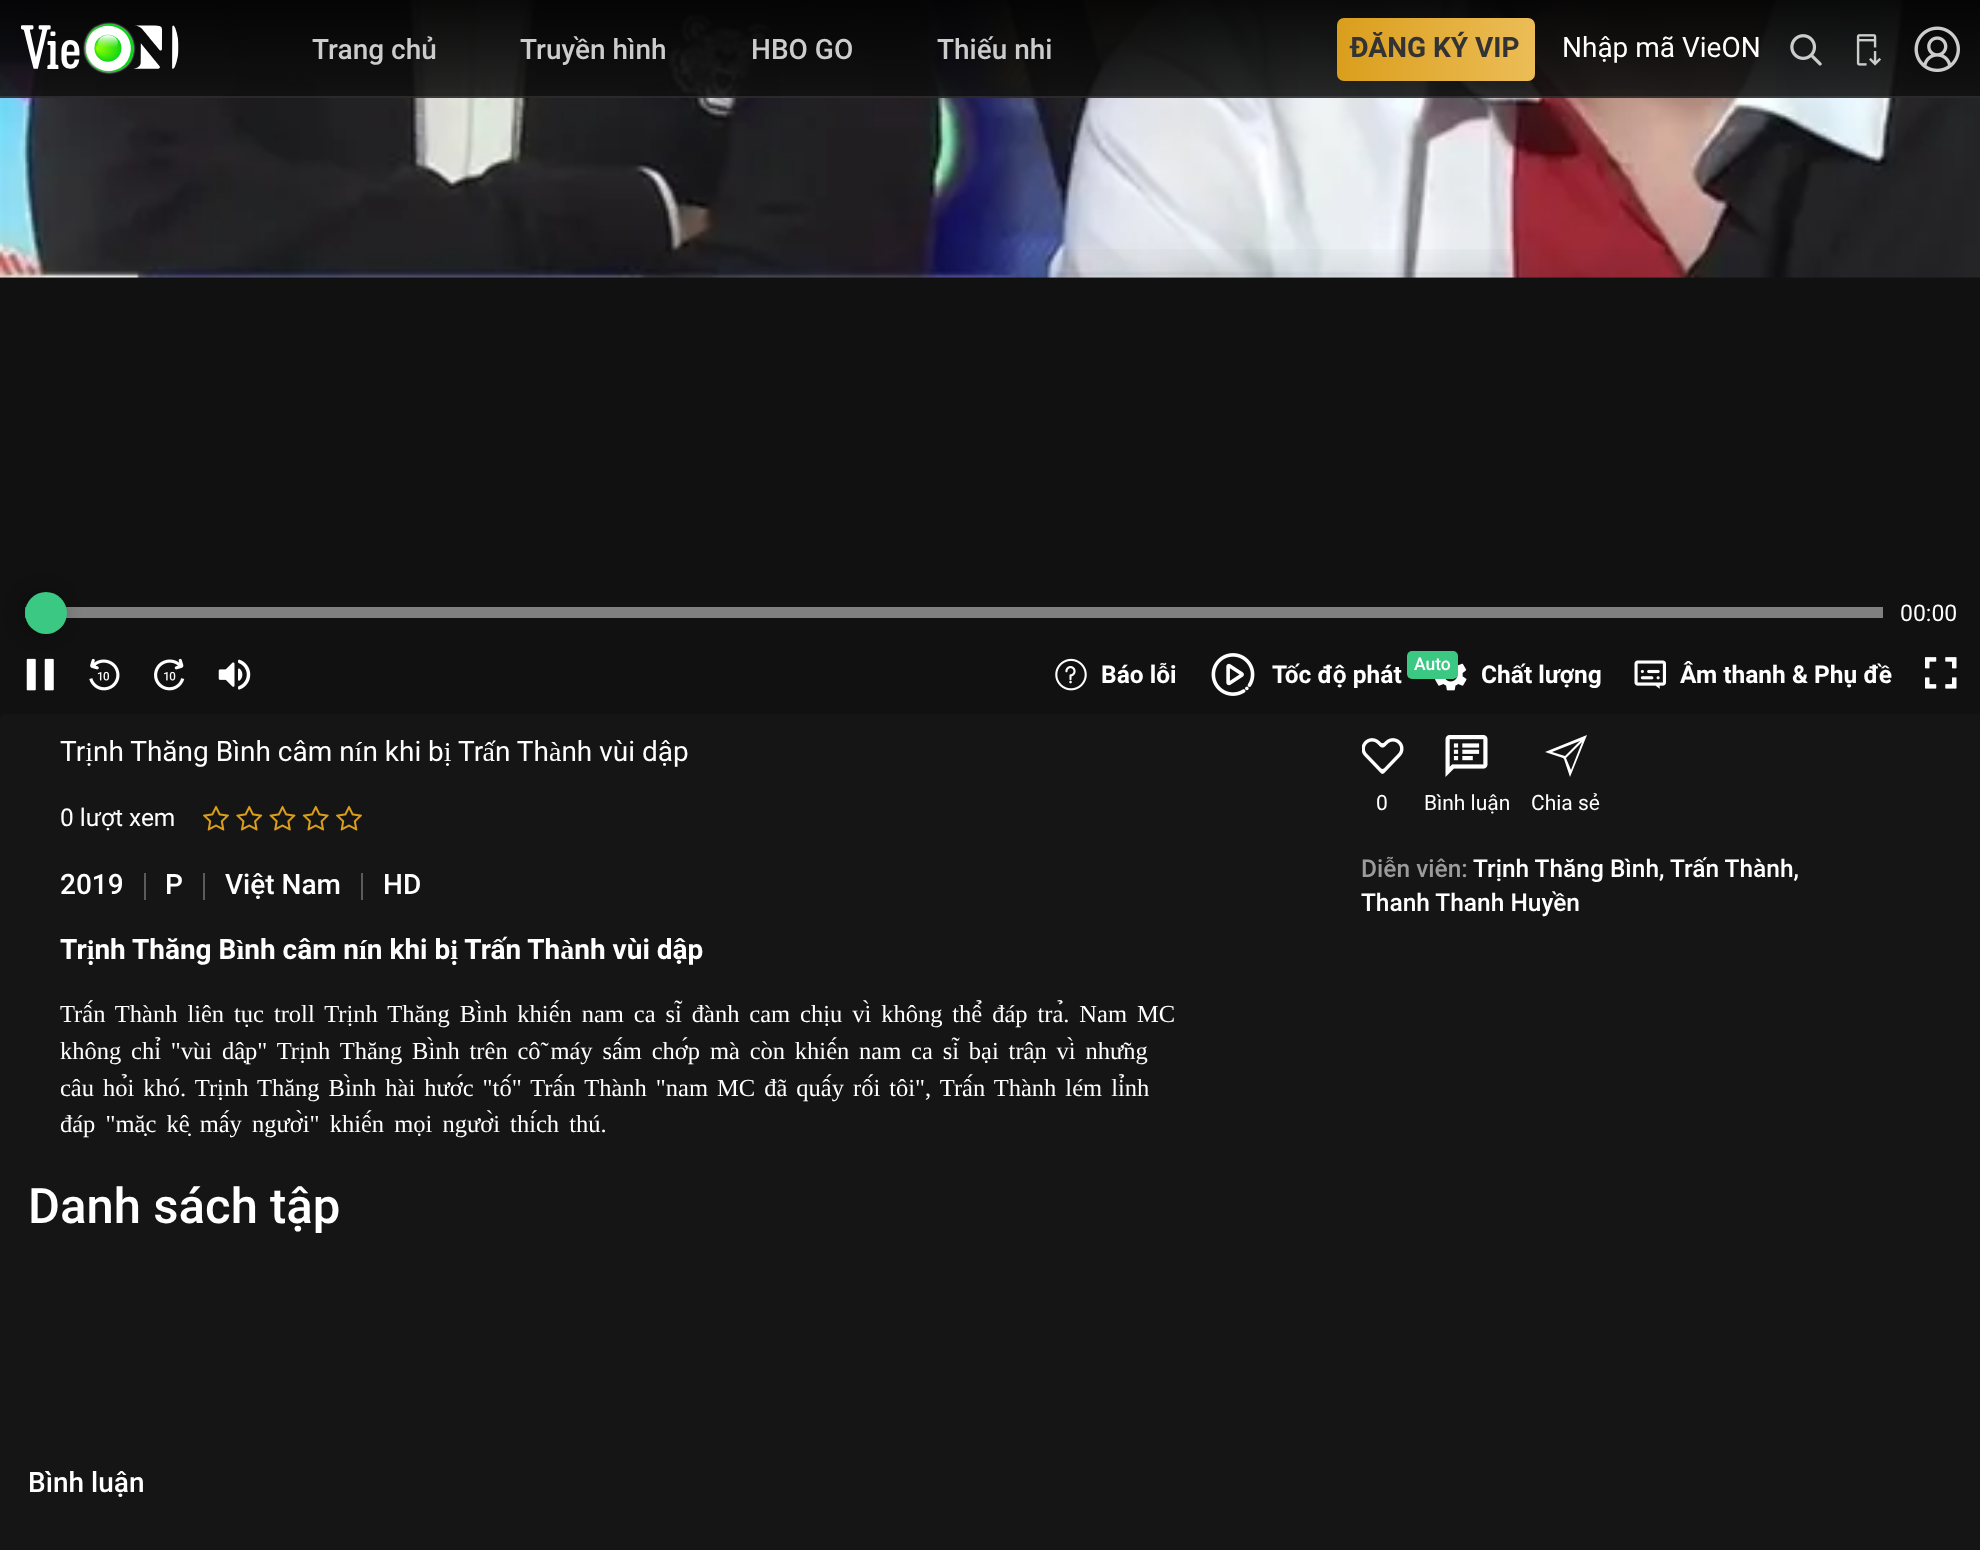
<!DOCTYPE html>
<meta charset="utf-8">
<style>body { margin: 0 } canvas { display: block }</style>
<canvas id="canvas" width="1980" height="1550"></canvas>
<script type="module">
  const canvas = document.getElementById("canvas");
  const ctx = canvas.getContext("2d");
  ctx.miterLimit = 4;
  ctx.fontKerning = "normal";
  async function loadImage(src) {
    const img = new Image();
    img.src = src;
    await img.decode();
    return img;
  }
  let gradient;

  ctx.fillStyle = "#111111";
  ctx.fillRect(0, 0, 1980, 1550);
  ctx.drawImage(await loadImage("img5.png"), 0, 0, 1980, 278);
  ctx.fillStyle = "rgba(17, 17, 17, 0.9)";
  ctx.fillRect(0, 0, 1980, 98);
  gradient = ctx.createLinearGradient(991, 98, 991, 0);
  gradient.addColorStop(0, "rgba(0, 0, 0, 0)");
  gradient.addColorStop(1, "rgba(0, 0, 0, 0.75)");
  ctx.fillStyle = gradient;
  ctx.fillRect(0, 0, 1980, 90);
  ctx.fillStyle = "rgba(255, 255, 255, 0.1)";
  ctx.fillRect(0, 96, 1980, 2);
  ctx.drawImage(await loadImage("img1.png"), 21, 22, 158, 53);
  ctx.font = "500 28px Roboto";
  ctx.fillStyle = "#cccccc";
  ctx.fillText("Trang chủ", 312, 59);
  ctx.fillText("Truyền hình", 520, 59);
  ctx.fillText("HBO GO", 751, 59);
  ctx.fillText("Thiếu nhi", 937, 59);
  gradient = ctx.createLinearGradient(1337, 49, 1535, 49);
  gradient.addColorStop(0, "#da9e1c");
  gradient.addColorStop(1, "#ecbd57");
  ctx.fillStyle = gradient;
  ctx.beginPath();
  ctx.roundRect(1337, 18, 198, 63, 7);
  ctx.fill();
  ctx.font = "bold 28px Roboto";
  ctx.fillStyle = "#333333";
  ctx.fillText("ĐĂNG KÝ VIP", 1350, 57);
  ctx.font = "28px Roboto";
  ctx.fillStyle = "#ffffff";
  ctx.fillText("Nhập mã VieON", 1562, 57);
  ctx.drawImage(await loadImage("img2.png"), 1790, 34, 32, 32);
  ctx.drawImage(await loadImage("img3.png"), 1856, 34, 25, 32);
  ctx.drawImage(await loadImage("img4.png"), 1914, 26, 46, 46);
  gradient = ctx.createLinearGradient(991, 714, 991, 238);
  gradient.addColorStop(0, "rgba(17, 17, 17, 0.95)");
  gradient.addColorStop(1, "rgba(17, 17, 17, 0)");
  ctx.fillStyle = gradient;
  ctx.fillRect(0, 249, 1706, 29);
  ctx.fillStyle = "#808080";
  ctx.fillRect(25, 607, 1858, 11);
  ctx.fillStyle = "rgba(0, 0, 0, 0.3)";
  ctx.filter = "blur(9px)";
  ctx.beginPath();
  ctx.roundRect(21, 592, 42, 42, 21);
  ctx.fill();
  ctx.filter = "none";
  ctx.fillStyle = "#3ac882";
  ctx.beginPath();
  ctx.arc(46, 613, 21, 0, Math.PI * 2);
  ctx.fill();
  ctx.font = "23px Roboto";
  ctx.fillStyle = "#ffffff";
  ctx.fillText("00:00", 1900, 621);
  ctx.drawImage(await loadImage("img6.png"), 26, 658, 28, 33);
  ctx.drawImage(await loadImage("img7.png"), 89, 658, 31, 33);
  ctx.drawImage(await loadImage("img8.png"), 154, 658, 31, 33);
  ctx.drawImage(await loadImage("img9.png"), 218, 659, 33, 31);
  ctx.drawImage(await loadImage("img10.png"), 1055, 658, 32, 33);
  ctx.font = "bold 24.5px Roboto";
  ctx.fillText("Báo lỗi", 1101, 683);
  ctx.drawImage(await loadImage("img11.png"), 1211, 653, 44, 43);
  ctx.fillText("Tốc độ phát", 1272, 683);
  ctx.drawImage(await loadImage("img12.png"), 1435, 663, 32, 28);
  ctx.fillStyle = "#3ac882";
  ctx.beginPath();
  ctx.roundRect(1407, 651, 51, 28, 5);
  ctx.fill();
  ctx.font = "500 17.5px Roboto";
  ctx.fillStyle = "#ffffff";
  ctx.fillText("Auto", 1414, 670);
  ctx.font = "bold 24.5px Roboto";
  ctx.fillText("Chất lượng", 1481, 683);
  ctx.drawImage(await loadImage("img13.png"), 1634, 660, 32, 29);
  ctx.fillText("Âm thanh & Phụ đề", 1680, 683);
  ctx.drawImage(await loadImage("img14.png"), 1925, 657, 32, 32);
  ctx.fillStyle = "#151515";
  ctx.beginPath();
  ctx.roundRect(0, 714, 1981, 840, 4);
  ctx.fill();
  ctx.font = "28px Roboto";
  ctx.fillStyle = "#ffffff";
  ctx.fillText("Trịnh Thăng Bình câm nín khi bị Trấn Thành vùi dập", 60, 761);
  ctx.font = "24.5px Roboto";
  ctx.fillText("0 lượt xem", 60, 826);
  ctx.drawImage(await loadImage("img15.png"), 203, 805, 26, 26);
  ctx.drawImage(await loadImage("img16.png"), 236, 805, 27, 26);
  ctx.drawImage(await loadImage("img17.png"), 269, 805, 27, 26);
  ctx.drawImage(await loadImage("img18.png"), 302, 805, 27, 26);
  ctx.drawImage(await loadImage("img15.png"), 336, 805, 26, 26);
  ctx.font = "500 28px Roboto";
  ctx.fillText("2019", 60, 894);
  ctx.fillStyle = "#5b5b5b";
  ctx.fillRect(144, 873, 2, 27);
  ctx.fillStyle = "#ffffff";
  ctx.fillText("P", 165, 894);
  ctx.fillStyle = "#5b5b5b";
  ctx.fillRect(203, 873, 2, 27);
  ctx.fillStyle = "#ffffff";
  ctx.fillText("Việt Nam", 225, 894);
  ctx.fillStyle = "#5b5b5b";
  ctx.fillRect(361, 873, 2, 27);
  ctx.fillStyle = "#ffffff";
  ctx.fillText("HD", 383, 894);
  ctx.font = "bold 28px Roboto";
  ctx.fillText("Trịnh Thăng Bình câm nín khi bị Trấn Thành vùi dập", 60, 959);
  ctx.wordSpacing = "3.8px";
  ctx.font = "24.5px Liberation Serif";
  ctx.fillText("Trấn Thành liên tục troll Trịnh Thăng Bình khiến nam ca sĩ đành cam chịu vì không thể đáp trả. Nam MC", 60, 1022);
  ctx.wordSpacing = "3.7px";
  ctx.fillText("không chỉ \"vùi dập\" Trịnh Thăng Bình trên cỗ máy sấm chớp mà còn khiến nam ca sĩ bại trận vì những", 60, 1059);
  ctx.wordSpacing = "2.9px";
  ctx.fillText("câu hỏi khó. Trịnh Thăng Bình hài hước \"tố\" Trấn Thành \"nam MC đã quấy rối tôi\", Trấn Thành lém lỉnh", 60, 1096);
  ctx.wordSpacing = "4px";
  ctx.fillText("đáp \"mặc kệ mấy người\" khiến mọi người thích thú.", 60, 1132);
  ctx.drawImage(await loadImage("img19.png"), 1362, 738, 42, 36);
  ctx.wordSpacing = "0px";
  ctx.font = "21px Roboto";
  ctx.fillText("0", 1376, 810);
  ctx.drawImage(await loadImage("img20.png"), 1445, 735, 43, 42);
  ctx.fillText("Bình luận", 1424, 810);
  ctx.beginPath();
  ctx.moveTo(1587, 735);
  ctx.lineTo(1570, 777);
  ctx.lineTo(1564, 759);
  ctx.lineTo(1563, 758);
  ctx.lineTo(1545, 752);
  ctx.closePath();
  ctx.moveTo(1582, 742);
  ctx.lineTo(1566, 758);
  ctx.lineTo(1571, 770);
  ctx.closePath();
  ctx.moveTo(1580, 741);
  ctx.lineTo(1552, 752);
  ctx.lineTo(1565, 756);
  ctx.closePath();
  ctx.fill();
  ctx.fillText("Chia sẻ", 1531, 810);
  ctx.font = "500 24.5px Roboto";
  ctx.fillStyle = "#9b9b9b";
  ctx.fillText("Diễn viên:", 1361, 877);
  ctx.fillStyle = "#ffffff";
  ctx.fillText("Trịnh Thăng Bình,", 1473, 877);
  ctx.fillText("Trấn Thành,", 1670, 877);
  ctx.fillText("Thanh Thanh Huyền", 1361, 911);
  ctx.font = "500 49px Roboto";
  ctx.fillText("Danh sách tập", 28, 1223);
  ctx.font = "500 28px Roboto";
  ctx.fillText("Bình luận", 28, 1492);
</script>
